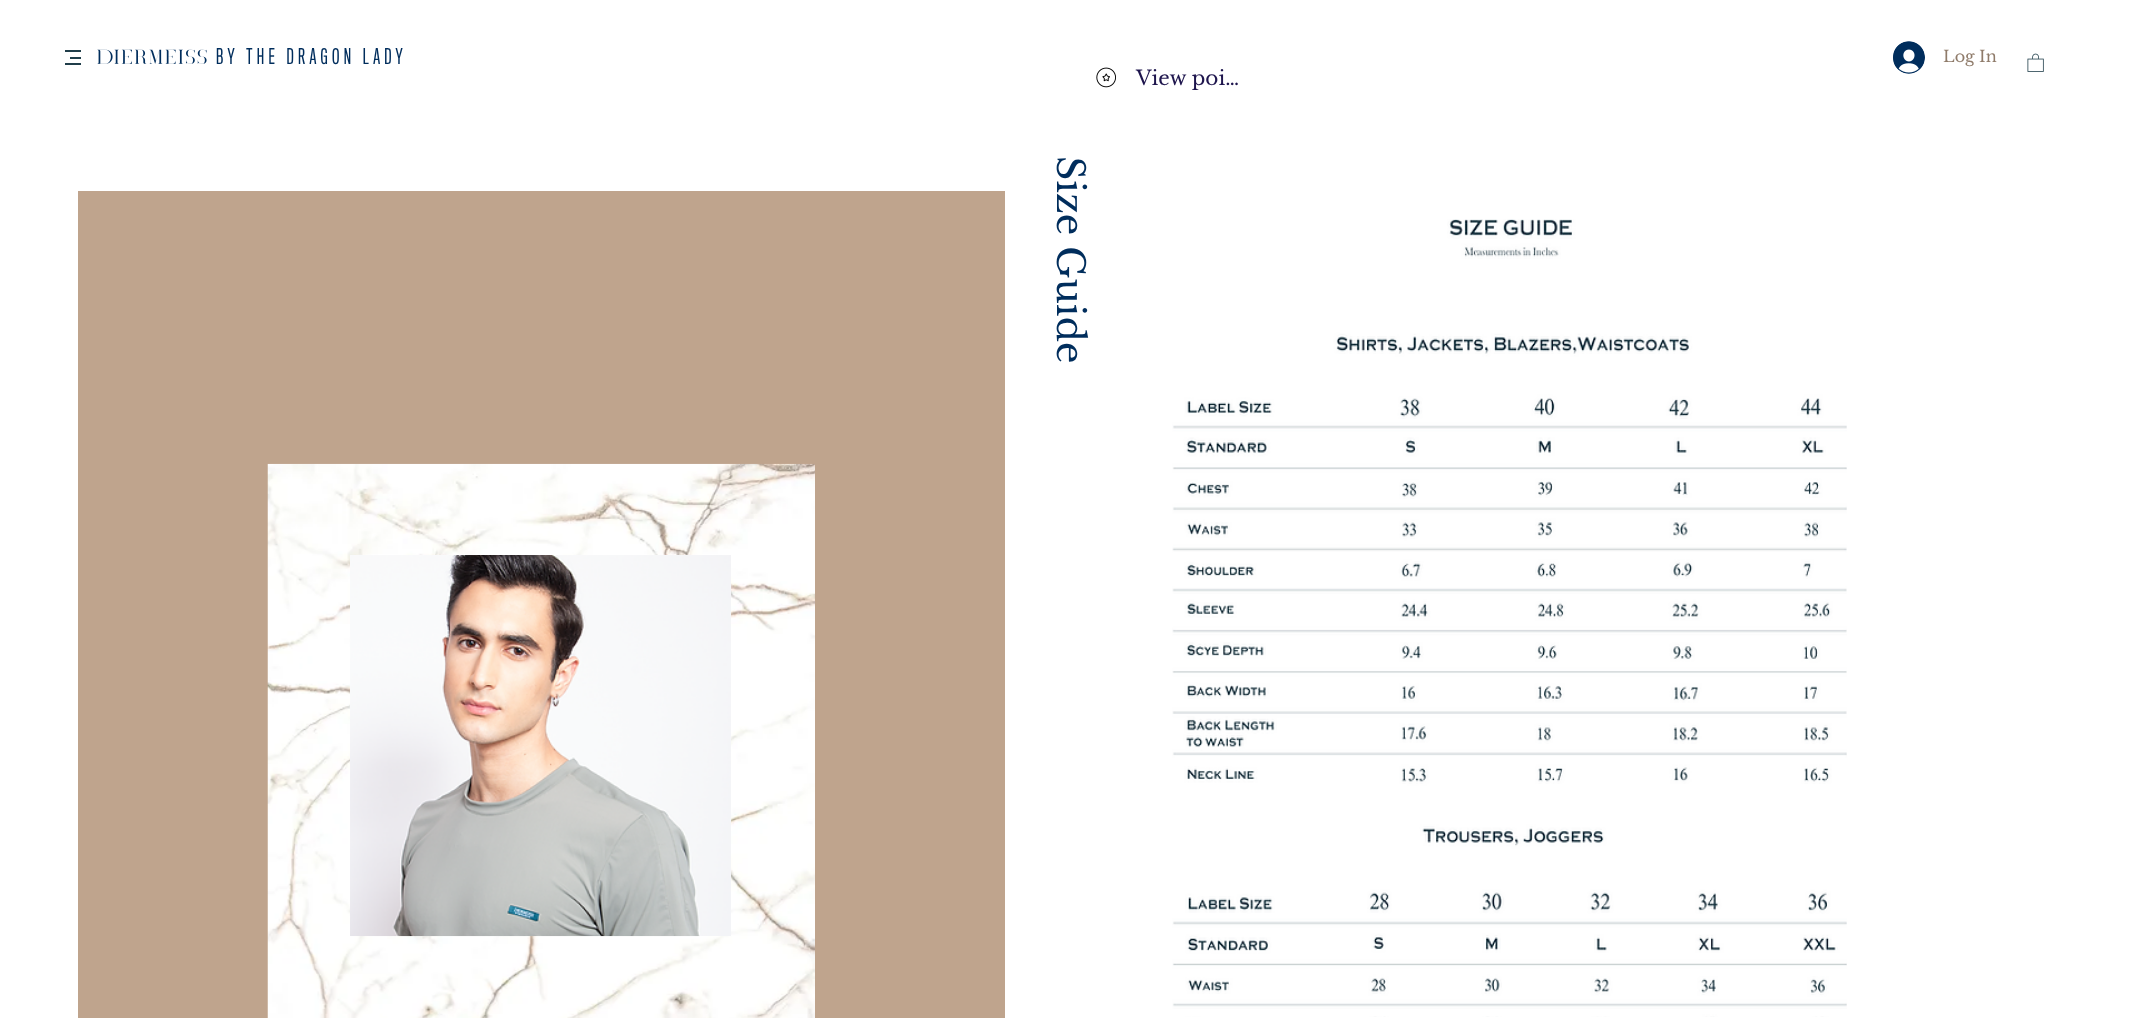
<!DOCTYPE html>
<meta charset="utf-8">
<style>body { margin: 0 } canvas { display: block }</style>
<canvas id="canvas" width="2139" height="1018"></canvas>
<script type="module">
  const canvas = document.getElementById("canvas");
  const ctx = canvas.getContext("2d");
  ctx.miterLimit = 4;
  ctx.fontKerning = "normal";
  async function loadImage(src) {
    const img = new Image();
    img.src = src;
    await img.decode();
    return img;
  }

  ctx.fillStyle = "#ffffff";
  ctx.fillRect(0, 0, 2139, 1018);
  ctx.fillStyle = "#203e4a";
  ctx.fillRect(65, 50, 16, 2);
  ctx.fillRect(70, 57, 11, 2);
  ctx.fillRect(65, 63, 16, 2);
  ctx.drawImage(await loadImage("img1.png"), 97, 49, 110, 15);
  ctx.letterSpacing = "4.4px";
  ctx.font = "20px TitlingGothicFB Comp";
  ctx.fillStyle = "#002d5c";
  ctx.fillText("BY THE DRAGON LADY", 216, 64);
  ctx.drawImage(await loadImage("img2.png"), 1893, 41, 32, 33);
  ctx.letterSpacing = "0px";
  ctx.font = "16px Libre Baskerville";
  ctx.fillStyle = "#8f7b6a";
  ctx.fillText("Log In", 1943, 62);
  ctx.drawImage(await loadImage("img3.png"), 2027, 53, 17, 19);
  ctx.drawImage(await loadImage("img4.png"), 1096, 67, 20, 21);
  ctx.font = "20px Libre Baskerville";
  ctx.fillStyle = "#1e154d";
  ctx.fillText("View poi…", 1136, 85);
  ctx.font = "37.5px Libre Baskerville";
  ctx.fillStyle = "#002d5c";
  ctx.save();
  ctx.translate(1057, 156);
  ctx.rotate(90 * Math.PI / 180);
  ctx.fillText("Size Guide", 0, 0);
  ctx.restore();
  ctx.fillStyle = "#bfa48d";
  ctx.fillRect(78, 191, 927, 827);
  ctx.drawImage(await loadImage("img5.png"), 267, 463, 548, 555);
  ctx.drawImage(await loadImage("img6.png"), 350, 555, 382, 382);
  ctx.drawImage(await loadImage("img7.png"), 1172, 219, 675, 798);
</script>
